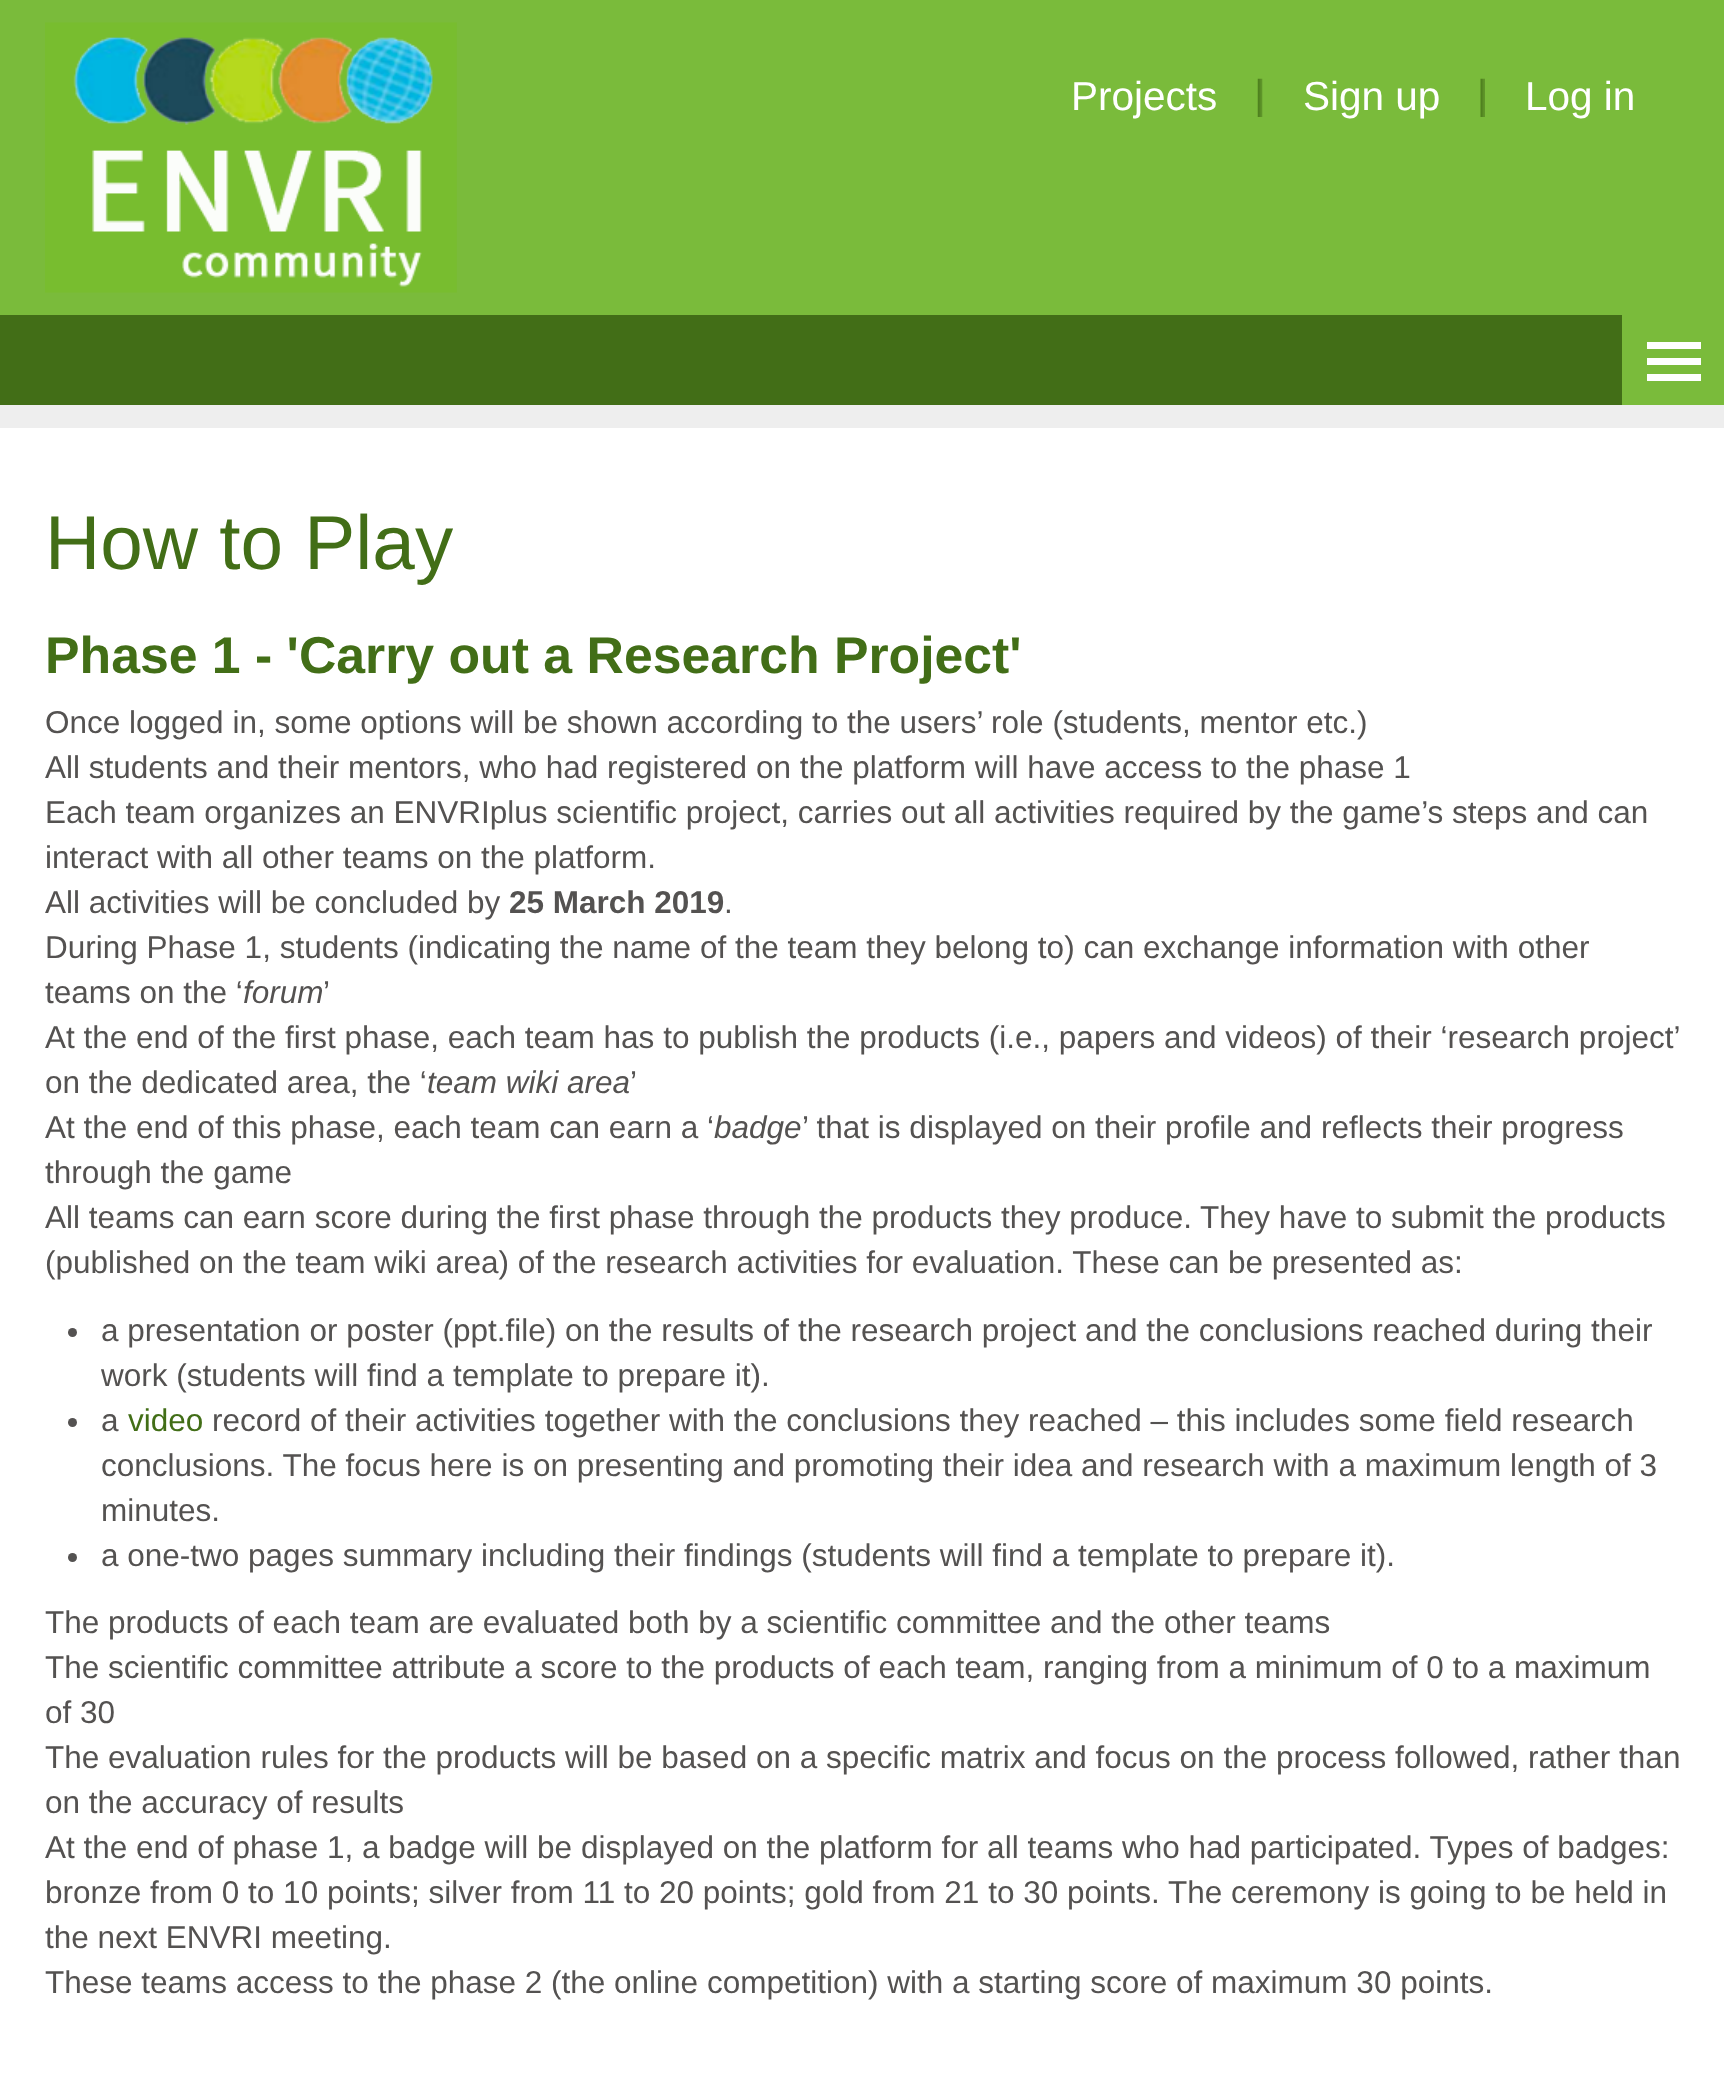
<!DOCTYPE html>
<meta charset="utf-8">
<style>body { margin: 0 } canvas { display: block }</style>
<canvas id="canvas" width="1724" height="2075"></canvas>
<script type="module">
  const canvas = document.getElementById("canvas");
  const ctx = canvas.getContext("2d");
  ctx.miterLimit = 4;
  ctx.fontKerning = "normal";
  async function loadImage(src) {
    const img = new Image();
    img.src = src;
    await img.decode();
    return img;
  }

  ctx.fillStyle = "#ffffff";
  ctx.fillRect(0, 0, 1724, 2075);
  ctx.fillStyle = "#7abb3b";
  ctx.fillRect(0, 0, 1724, 315);
  ctx.drawImage(await loadImage("img1.png"), 45, 22, 412, 271);
  ctx.drawImage(await loadImage("img2.png"), 1257, 78, 6, 39);
  ctx.font = "40.5px Liberation Sans";
  ctx.fillStyle = "#ffffff";
  ctx.fillText("Projects", 1071, 110);
  ctx.drawImage(await loadImage("img3.png"), 1480, 78, 5, 39);
  ctx.fillText("Sign up", 1303, 110);
  ctx.fillText("Log in", 1525, 110);
  ctx.fillStyle = "#426e17";
  ctx.fillRect(0, 315, 1622, 90);
  ctx.fillStyle = "#7abb3b";
  ctx.fillRect(1622, 315, 102, 90);
  ctx.fillStyle = "#ffffff";
  ctx.fillRect(1647, 342, 54, 7);
  ctx.fillRect(1647, 358, 54, 7);
  ctx.fillRect(1647, 374, 54, 7);
  ctx.fillStyle = "#eeeeee";
  ctx.fillRect(0, 405, 1724, 23);
  ctx.font = "76.5px Liberation Sans";
  ctx.fillStyle = "#426e17";
  ctx.fillText("How to Play", 45, 569);
  ctx.font = "bold 51.75px Liberation Sans";
  ctx.fillText("Phase 1 - 'Carry out a Research Project'", 45, 673);
  ctx.font = "31.5px Liberation Sans";
  ctx.fillStyle = "#545251";
  ctx.fillText("Once logged in, some options will be shown according to the users’ role (students, mentor etc.)", 45, 733);
  ctx.fillText("All students and their mentors, who had registered on the platform will have access to the phase 1", 45, 778);
  ctx.fillText("Each team organizes an ENVRIplus scientific project, carries out all activities required by the game’s steps and can", 45, 823);
  ctx.fillText("interact with all other teams on the platform.", 45, 868);
  ctx.fillText("All activities will be concluded by", 45, 913);
  ctx.font = "bold 31.5px Liberation Sans";
  ctx.fillText("25 March 2019", 509, 913);
  ctx.font = "31.5px Liberation Sans";
  ctx.fillText(".", 724, 913);
  ctx.fillText("During Phase 1, students (indicating the name of the team they belong to) can exchange information with other", 45, 958);
  ctx.fillText("teams on the ‘", 45, 1003);
  ctx.font = "italic 31.5px Liberation Sans";
  ctx.fillText("forum", 243, 1003);
  ctx.font = "31.5px Liberation Sans";
  ctx.fillText("’", 323, 1003);
  ctx.fillText("At the end of the first phase, each team has to publish the products (i.e., papers and videos) of their ‘research project’", 45, 1048);
  ctx.fillText("on the dedicated area, the ‘", 45, 1093);
  ctx.font = "italic 31.5px Liberation Sans";
  ctx.fillText("team wiki area", 427, 1093);
  ctx.font = "31.5px Liberation Sans";
  ctx.fillText("’", 630, 1093);
  ctx.fillText("At the end of this phase, each team can earn a ‘", 45, 1138);
  ctx.font = "italic 31.5px Liberation Sans";
  ctx.fillText("badge", 714, 1138);
  ctx.font = "31.5px Liberation Sans";
  ctx.fillText("’ that is displayed on their profile and reflects their progress", 802, 1138);
  ctx.fillText("through the game", 45, 1183);
  ctx.fillText("All teams can earn score during the first phase through the products they produce. They have to submit the products", 45, 1228);
  ctx.fillText("(published on the team wiki area) of the research activities for evaluation. These can be presented as:", 45, 1273);
  ctx.beginPath();
  ctx.arc(72.5, 1332.5, 4.5, 0, Math.PI * 2);
  ctx.fill();
  ctx.fillText("a presentation or poster (ppt.file) on the results of the research project and the conclusions reached during their", 101, 1341);
  ctx.fillText("work (students will find a template to prepare it).", 101, 1386);
  ctx.beginPath();
  ctx.arc(72.5, 1422.5, 4.5, 0, Math.PI * 2);
  ctx.fill();
  ctx.fillText("a", 101, 1431);
  ctx.fillStyle = "#426e17";
  ctx.fillText("video", 128, 1431);
  ctx.fillStyle = "#545251";
  ctx.fillText("record of their activities together with the conclusions they reached – this includes some field research", 212, 1431);
  ctx.fillText("conclusions. The focus here is on presenting and promoting their idea and research with a maximum length of 3", 101, 1476);
  ctx.fillText("minutes.", 101, 1521);
  ctx.beginPath();
  ctx.arc(72.5, 1557.5, 4.5, 0, Math.PI * 2);
  ctx.fill();
  ctx.fillText("a one-two pages summary including their findings (students will find a template to prepare it).", 101, 1566);
  ctx.fillText("The products of each team are evaluated both by a scientific committee and the other teams", 45, 1633);
  ctx.fillText("The scientific committee attribute a score to the products of each team, ranging from a minimum of 0 to a maximum", 45, 1678);
  ctx.fillText("of 30", 45, 1723);
  ctx.fillText("The evaluation rules for the products will be based on a specific matrix and focus on the process followed, rather than", 45, 1768);
  ctx.fillText("on the accuracy of results", 45, 1813);
  ctx.fillText("At the end of phase 1, a badge will be displayed on the platform for all teams who had participated. Types of badges:", 45, 1858);
  ctx.fillText("bronze from 0 to 10 points; silver from 11 to 20 points; gold from 21 to 30 points. The ceremony is going to be held in", 45, 1903);
  ctx.fillText("the next ENVRI meeting.", 45, 1948);
  ctx.fillText("These teams access to the phase 2 (the online competition) with a starting score of maximum 30 points.", 45, 1993);
</script>
